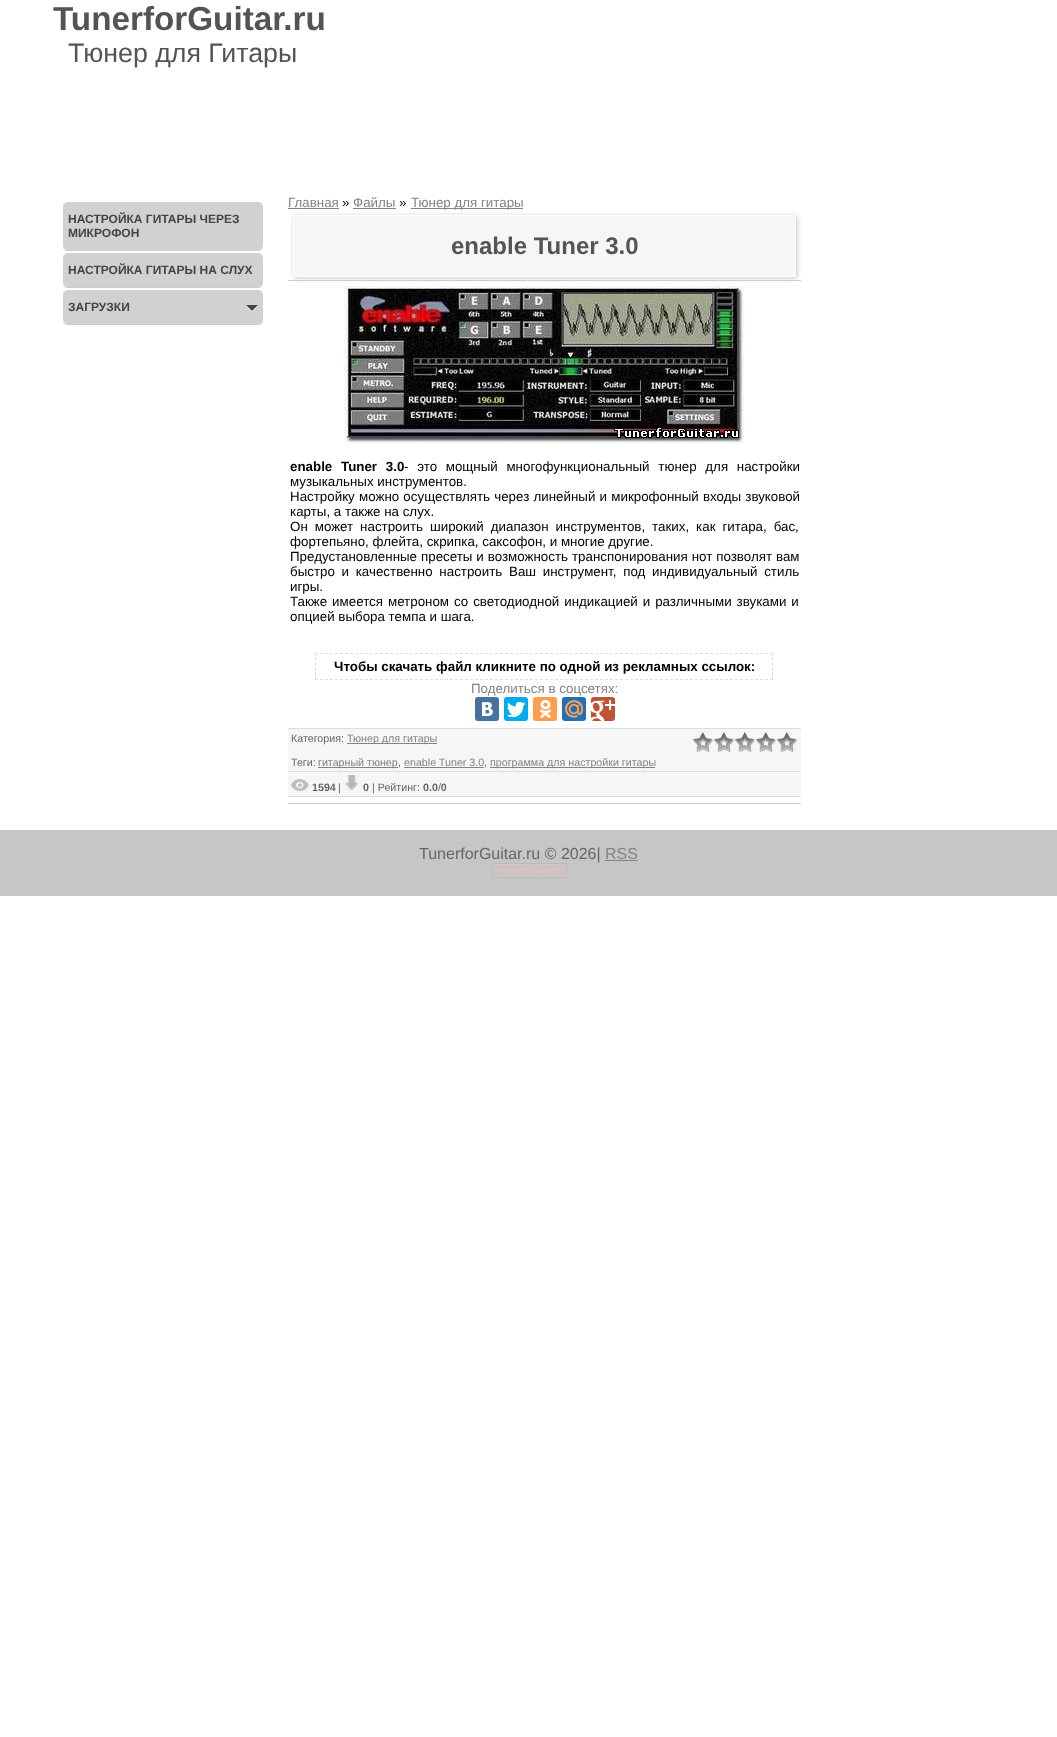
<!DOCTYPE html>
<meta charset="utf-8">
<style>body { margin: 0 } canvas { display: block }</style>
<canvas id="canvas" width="1057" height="1737"></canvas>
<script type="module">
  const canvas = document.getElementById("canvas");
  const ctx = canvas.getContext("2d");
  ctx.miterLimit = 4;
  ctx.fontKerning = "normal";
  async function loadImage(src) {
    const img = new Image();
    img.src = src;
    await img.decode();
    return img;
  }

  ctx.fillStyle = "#ffffff";
  ctx.fillRect(0, 0, 1057, 1737);
  ctx.font = "bold 33.25px Liberation Sans";
  ctx.fillStyle = "#545454";
  ctx.fillText("TunerforGuitar.ru", 53, 30);
  ctx.font = "26.75px Liberation Sans";
  ctx.fillText("Тюнер для Гитары", 68, 62);
  ctx.fillStyle = "#cccccc";
  ctx.beginPath();
  ctx.moveTo(63, 245);
  ctx.lineTo(63, 246);
  ctx.bezierCurveTo(63, 249, 65, 251, 68, 251);
  ctx.lineTo(258, 251);
  ctx.bezierCurveTo(261, 251, 263, 249, 263, 246);
  ctx.lineTo(263, 245);
  ctx.bezierCurveTo(263, 248, 261, 250, 258, 250);
  ctx.lineTo(68, 250);
  ctx.bezierCurveTo(65, 250, 63, 248, 63, 245);
  ctx.closePath();
  ctx.fill();
  ctx.fillStyle = "#d1d1d1";
  ctx.beginPath();
  ctx.roundRect(63, 202, 200, 48, 5);
  ctx.fill();
  ctx.font = "bold 12px Liberation Sans";
  ctx.fillStyle = "#444444";
  ctx.fillText("НАСТРОЙКА ГИТАРЫ ЧЕРЕЗ", 68, 223);
  ctx.fillText("МИКРОФОН", 68, 237);
  ctx.fillStyle = "#cccccc";
  ctx.beginPath();
  ctx.moveTo(63, 282);
  ctx.lineTo(63, 283);
  ctx.bezierCurveTo(63, 286, 65, 288, 68, 288);
  ctx.lineTo(258, 288);
  ctx.bezierCurveTo(261, 288, 263, 286, 263, 283);
  ctx.lineTo(263, 282);
  ctx.bezierCurveTo(263, 285, 261, 287, 258, 287);
  ctx.lineTo(68, 287);
  ctx.bezierCurveTo(65, 287, 63, 285, 63, 282);
  ctx.closePath();
  ctx.fill();
  ctx.fillStyle = "#d1d1d1";
  ctx.beginPath();
  ctx.roundRect(63, 253, 200, 34, 5);
  ctx.fill();
  ctx.fillStyle = "#444444";
  ctx.fillText("НАСТРОЙКА ГИТАРЫ НА СЛУХ", 68, 274);
  ctx.fillStyle = "#cccccc";
  ctx.beginPath();
  ctx.moveTo(63, 319);
  ctx.lineTo(63, 320);
  ctx.bezierCurveTo(63, 323, 65, 325, 68, 325);
  ctx.lineTo(258, 325);
  ctx.bezierCurveTo(261, 325, 263, 323, 263, 320);
  ctx.lineTo(263, 319);
  ctx.bezierCurveTo(263, 322, 261, 324, 258, 324);
  ctx.lineTo(68, 324);
  ctx.bezierCurveTo(65, 324, 63, 322, 63, 319);
  ctx.closePath();
  ctx.fill();
  ctx.fillStyle = "#d1d1d1";
  ctx.beginPath();
  ctx.roundRect(63, 290, 200, 34, 5);
  ctx.fill();
  ctx.fillStyle = "#444444";
  ctx.fillText("ЗАГРУЗКИ", 68, 311);
  ctx.fillStyle = "#ffffff";
  ctx.beginPath();
  ctx.moveTo(246, 306);
  ctx.lineTo(258, 306);
  ctx.lineTo(252, 312);
  ctx.closePath();
  ctx.fill();
  ctx.fillStyle = "#444444";
  ctx.beginPath();
  ctx.moveTo(246, 305);
  ctx.lineTo(258, 305);
  ctx.lineTo(252, 311);
  ctx.closePath();
  ctx.fill();
  ctx.fillStyle = "#c3c3c3";
  ctx.filter = "blur(2.5px)";
  ctx.beginPath();
  ctx.rect(294, 216, 503, 62);
  ctx.fill();
  ctx.filter = "none";
  ctx.font = "13.35px Liberation Sans";
  ctx.fillStyle = "#838383";
  ctx.fillText("Главная", 288, 207);
  ctx.fillRect(288, 208, 51, 1);
  ctx.fillStyle = "#000000";
  ctx.fillText("»", 342, 207);
  ctx.fillStyle = "#838383";
  ctx.fillText("Файлы", 353, 207);
  ctx.fillRect(353, 208, 43, 1);
  ctx.fillStyle = "#000000";
  ctx.fillText("»", 399, 207);
  ctx.fillStyle = "#838383";
  ctx.fillRect(411, 208, 112, 1);
  ctx.fillText("Тюнер для гитары", 411, 207);
  ctx.fillStyle = "#f6f6f6";
  ctx.beginPath();
  ctx.rect(293.5, 215.5, 502, 61);
  ctx.fill();
  ctx.strokeStyle = "#ffffff";
  ctx.stroke();
  ctx.font = "bold 24px Liberation Sans";
  ctx.fillStyle = "#545454";
  ctx.fillText("enable Tuner 3.0", 451, 254);
  ctx.fillStyle = "#cccccc";
  ctx.fillRect(288, 280, 513, 1);
  ctx.drawImage(await loadImage("img1.png"), 344, 286, 400, 157);
  ctx.wordSpacing = "5px";
  ctx.font = "bold 13.35px Liberation Sans";
  ctx.fillStyle = "#000000";
  ctx.fillText("enable Tuner 3.0", 290, 471);
  ctx.font = "13.35px Liberation Sans";
  ctx.fillText("- это мощный многофункциональный тюнер для настройки", 404, 471);
  ctx.wordSpacing = "0px";
  ctx.fillText("музыкальных инструментов.", 290, 486);
  ctx.wordSpacing = "0.5px";
  ctx.fillText("Настройку можно осуществлять через линейный и микрофонный входы звуковой", 290, 501);
  ctx.wordSpacing = "0px";
  ctx.fillText("карты, а также на слух.", 290, 516);
  ctx.wordSpacing = "3.25px";
  ctx.fillText("Он может настроить широкий диапазон инструментов, таких, как гитара, бас,", 290, 531);
  ctx.wordSpacing = "0px";
  ctx.fillText("фортепьяно, флейта, скрипка, саксофон, и многие другие.", 290, 546);
  ctx.wordSpacing = "0.25px";
  ctx.fillText("Предустановленные пресеты и возможность транспонирования нот позволят вам", 290, 561);
  ctx.wordSpacing = "3px";
  ctx.fillText("быстро и качественно настроить Ваш инструмент, под индивидуальный стиль", 290, 576);
  ctx.wordSpacing = "0px";
  ctx.fillText("игры.", 290, 591);
  ctx.wordSpacing = "1.25px";
  ctx.fillText("Также имеется метроном со светодиодной индикацией и различными звуками и", 290, 606);
  ctx.wordSpacing = "0px";
  ctx.fillText("опцией выбора темпа и шага.", 290, 621);
  ctx.beginPath();
  ctx.moveTo(315, 653.5);
  ctx.lineTo(773, 653.5);
  ctx.strokeStyle = "#e0e0e0";
  ctx.setLineDash([3, 2]);
  ctx.stroke();
  ctx.beginPath();
  ctx.moveTo(772.5, 653);
  ctx.lineTo(772.5, 680);
  ctx.setLineDash([3, 1.8]);
  ctx.stroke();
  ctx.beginPath();
  ctx.moveTo(315, 679.5);
  ctx.lineTo(773, 679.5);
  ctx.setLineDash([3, 2]);
  ctx.stroke();
  ctx.beginPath();
  ctx.moveTo(315.5, 653);
  ctx.lineTo(315.5, 680);
  ctx.setLineDash([3, 1.8]);
  ctx.stroke();
  ctx.font = "bold 13.35px Liberation Sans";
  ctx.fillText("Чтобы скачать файл кликните по одной из рекламных ссылок:", 334, 671);
  ctx.font = "13.35px Liberation Sans";
  ctx.fillStyle = "#838383";
  ctx.fillText("Поделиться в соцсетях:", 471, 693);
  ctx.fillStyle = "#48729e";
  ctx.beginPath();
  ctx.roundRect(475, 697, 24, 24, 3);
  ctx.fill();
  ctx.drawImage(await loadImage("img2.png"), 482, 702, 11, 14);
  ctx.fillStyle = "#00aced";
  ctx.beginPath();
  ctx.roundRect(504, 697, 24, 24, 3);
  ctx.fill();
  ctx.drawImage(await loadImage("img3.png"), 507, 702, 18, 15);
  ctx.fillStyle = "#ff9f4d";
  ctx.beginPath();
  ctx.roundRect(533, 697, 24, 24, 3);
  ctx.fill();
  ctx.drawImage(await loadImage("img4.png"), 540, 700, 11, 18);
  ctx.fillStyle = "#226eb7";
  ctx.beginPath();
  ctx.roundRect(562, 697, 24, 24, 3);
  ctx.fill();
  ctx.drawImage(await loadImage("img5.png"), 565, 700, 18, 18);
  ctx.fillStyle = "#c25234";
  ctx.beginPath();
  ctx.roundRect(591, 697, 24, 24, 3);
  ctx.fill();
  ctx.drawImage(await loadImage("img6.png"), 591, 700, 24, 21);
  ctx.fillStyle = "#f6f6f6";
  ctx.fillRect(288, 729, 513, 42);
  ctx.fillStyle = "#dddddd";
  ctx.fillRect(288, 728, 513, 1);
  ctx.fillRect(288, 771, 513, 1);
  ctx.font = "10.7px Liberation Sans";
  ctx.fillStyle = "#666666";
  ctx.fillText("Категория:", 291, 742);
  ctx.fillStyle = "#838383";
  ctx.fillRect(347, 743, 90, 1);
  ctx.fillText("Тюнер для гитары", 347, 742);
  ctx.drawImage(await loadImage("img7.png"), 693, 732, 104, 21);
  ctx.fillStyle = "#666666";
  ctx.fillText("Теги:", 291, 766);
  ctx.fillStyle = "#838383";
  ctx.fillRect(318, 767, 80, 1);
  ctx.fillText("гитарный тюнер", 318, 766);
  ctx.fillStyle = "#666666";
  ctx.fillText(",", 398, 766);
  ctx.fillStyle = "#838383";
  ctx.fillText("enable Tuner 3.0", 404, 766);
  ctx.fillStyle = "#666666";
  ctx.fillText(",", 484, 766);
  ctx.fillStyle = "#838383";
  ctx.fillRect(404, 767, 80, 1);
  ctx.fillRect(490, 767, 165, 1);
  ctx.fillText("программа для настройки гитары", 490, 766);
  ctx.fillStyle = "#f6f6f6";
  ctx.fillRect(288, 772, 513, 24);
  ctx.fillStyle = "#dddddd";
  ctx.fillRect(288, 796, 513, 1);
  ctx.drawImage(await loadImage("img8.png"), 291, 779, 18, 12);
  ctx.font = "bold 10.7px Liberation Sans";
  ctx.fillStyle = "#666666";
  ctx.fillText("1594", 312, 791);
  ctx.font = "10.7px Liberation Sans";
  ctx.fillText("|", 338, 791);
  ctx.drawImage(await loadImage("img9.png"), 345, 775, 14, 15);
  ctx.font = "bold 10.7px Liberation Sans";
  ctx.fillText("0", 363, 791);
  ctx.font = "10.7px Liberation Sans";
  ctx.fillText("| Рейтинг:", 372, 791);
  ctx.font = "bold 10.7px Liberation Sans";
  ctx.fillText("0.0 0", 423, 791);
  ctx.font = "10.7px Liberation Sans";
  ctx.fillText("/", 438, 791);
  ctx.fillStyle = "#cccccc";
  ctx.fillRect(288, 803, 513, 1);
  ctx.fillStyle = "#c6c6c6";
  ctx.fillRect(0, 830, 1057, 66);
  ctx.font = "16px Liberation Sans";
  ctx.fillStyle = "#666666";
  ctx.fillText("TunerforGuitar.ru © 2026|", 419, 859);
  ctx.fillStyle = "#838383";
  ctx.fillText("RSS", 605, 859);
  ctx.fillRect(605, 860, 33, 1);
  ctx.drawImage(await loadImage("img10.png"), 492, 863, 75, 15);
</script>
